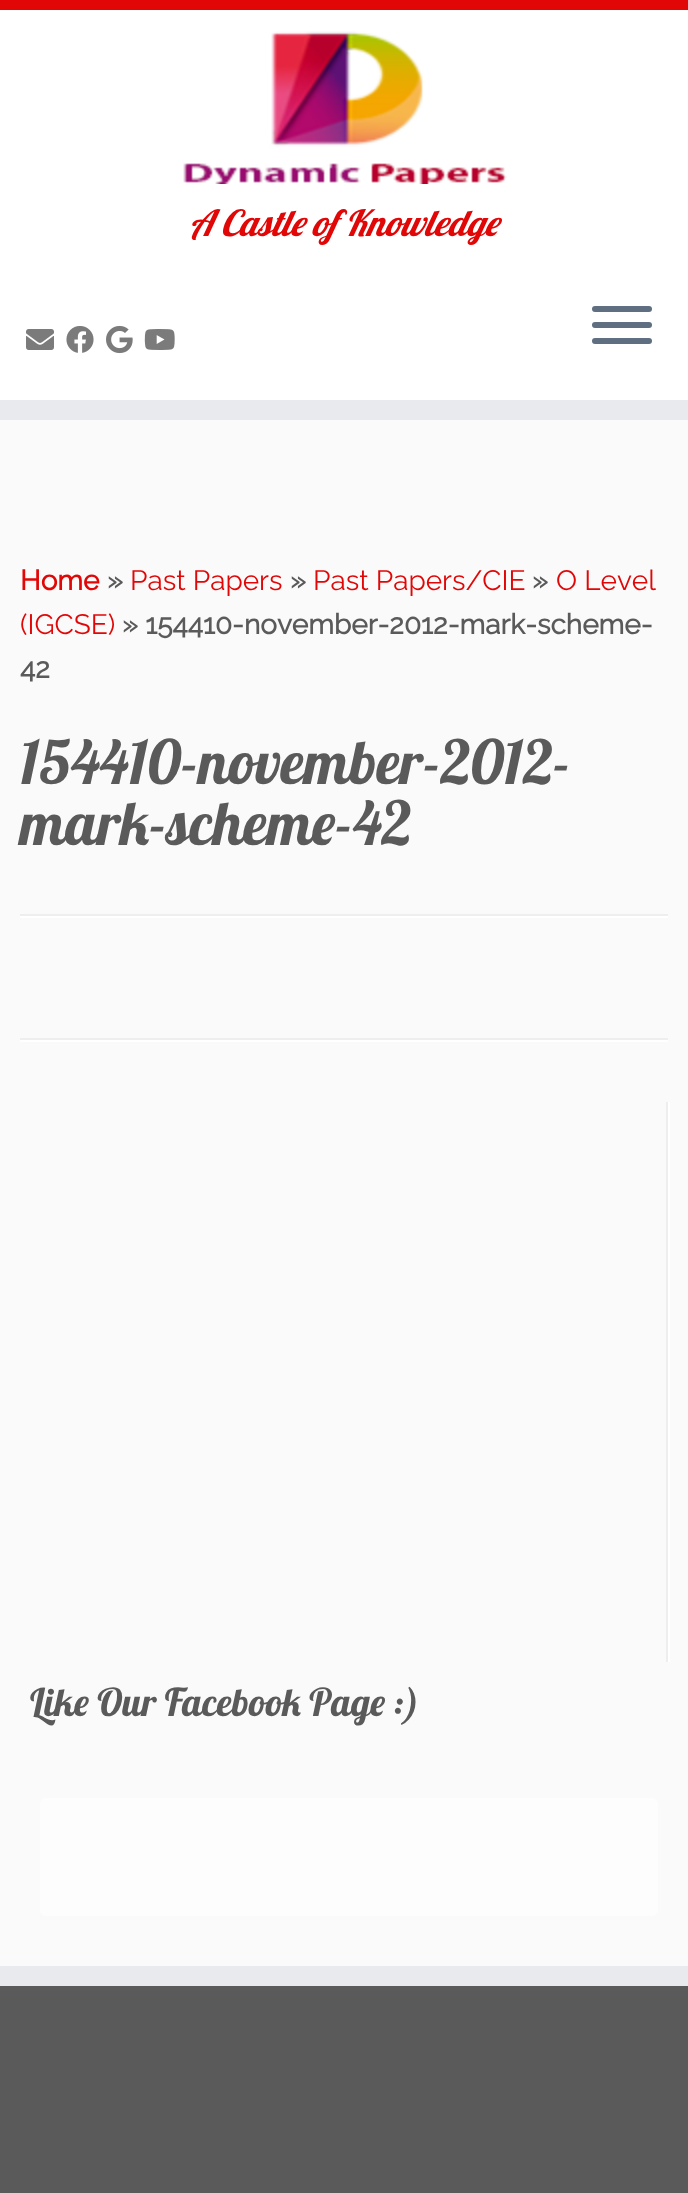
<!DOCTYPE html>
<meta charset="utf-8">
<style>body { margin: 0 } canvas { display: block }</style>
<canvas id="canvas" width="688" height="2193"></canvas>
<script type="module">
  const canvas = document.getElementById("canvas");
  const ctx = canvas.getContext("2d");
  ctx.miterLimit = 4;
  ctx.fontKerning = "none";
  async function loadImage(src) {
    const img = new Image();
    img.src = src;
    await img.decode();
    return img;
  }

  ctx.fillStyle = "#fafafa";
  ctx.fillRect(0, 0, 688, 2193);
  ctx.fillStyle = "#ffffff";
  ctx.fillRect(0, 10, 688, 390);
  ctx.fillStyle = "#e10707";
  ctx.fillRect(0, 0, 688, 10);
  ctx.fillStyle = "#e9eaee";
  ctx.fillRect(0, 400, 688, 20);
  ctx.drawImage(await loadImage("img1.png"), 183, 31, 324, 153);
  ctx.font = "italic 36px Lobster";
  ctx.fillStyle = "#e10707";
  ctx.fillText("A Castle of Knowledge", 189, 236);
  ctx.drawImage(await loadImage("img2.png"), 26, 329, 28, 21);
  ctx.drawImage(await loadImage("img3.png"), 66, 326, 28, 27);
  ctx.drawImage(await loadImage("img4.png"), 106, 325, 27, 29);
  ctx.drawImage(await loadImage("img5.png"), 144, 329, 31, 21);
  ctx.fillStyle = "#5f6f81";
  ctx.beginPath();
  ctx.roundRect(592, 306, 60, 6, 3);
  ctx.fill();
  ctx.beginPath();
  ctx.roundRect(592, 322, 60, 6, 3);
  ctx.fill();
  ctx.beginPath();
  ctx.roundRect(592, 338, 60, 6, 3);
  ctx.fill();
  ctx.font = "bold 28px Raleway";
  ctx.fillStyle = "#e10707";
  ctx.fillText("Home", 20, 590);
  ctx.fillStyle = "#5a5a5a";
  ctx.fillText("»", 107, 590);
  ctx.font = "100 28px Raleway";
  ctx.fillStyle = "#e10707";
  ctx.fillText("Past Papers", 130, 590);
  ctx.font = "bold 28px Raleway";
  ctx.fillStyle = "#5a5a5a";
  ctx.fillText("»", 290, 590);
  ctx.font = "100 28px Raleway";
  ctx.fillStyle = "#e10707";
  ctx.fillText("Past Papers/CIE", 313, 590);
  ctx.font = "bold 28px Raleway";
  ctx.fillStyle = "#5a5a5a";
  ctx.fillText("»", 532, 590);
  ctx.font = "100 28px Raleway";
  ctx.fillStyle = "#e10707";
  ctx.fillText("O Level", 556, 590);
  ctx.fillText("(IGCSE)", 20, 634);
  ctx.font = "bold 28px Raleway";
  ctx.fillStyle = "#5a5a5a";
  ctx.fillText("» 154410-november-2012-mark-scheme-", 122, 634);
  ctx.fillText("42", 20, 678);
  ctx.font = "60.75px Lobster";
  ctx.fillText("154410-november-2012-", 20, 784);
  ctx.fillText("mark-scheme-42", 20, 845);
  ctx.fillStyle = "#eeeeee";
  ctx.fillRect(20, 914, 648, 2);
  ctx.fillStyle = "#ffffff";
  ctx.fillRect(20, 916, 648, 2);
  ctx.fillStyle = "#eeeeee";
  ctx.fillRect(20, 1038, 648, 2);
  ctx.fillStyle = "#ffffff";
  ctx.fillRect(20, 1040, 648, 2);
  ctx.fillStyle = "#eeeeee";
  ctx.fillRect(666, 1102, 2, 560);
  ctx.fillStyle = "#ffffff";
  ctx.fillRect(668, 1102, 2, 560);
  ctx.font = "38.4px Lobster";
  ctx.fillStyle = "#5a5a5a";
  ctx.fillText("Like Our Facebook Page :)", 30, 1716);
  ctx.fillStyle = "#fdfdfd";
  ctx.beginPath();
  ctx.roundRect(40, 1798, 618, 118, 6);
  ctx.fill();
  ctx.fillStyle = "#5a5a5a";
  ctx.fillRect(0, 1986, 688, 207);
  ctx.fillStyle = "#e9eaee";
  ctx.fillRect(0, 1966, 688, 20);
</script>
